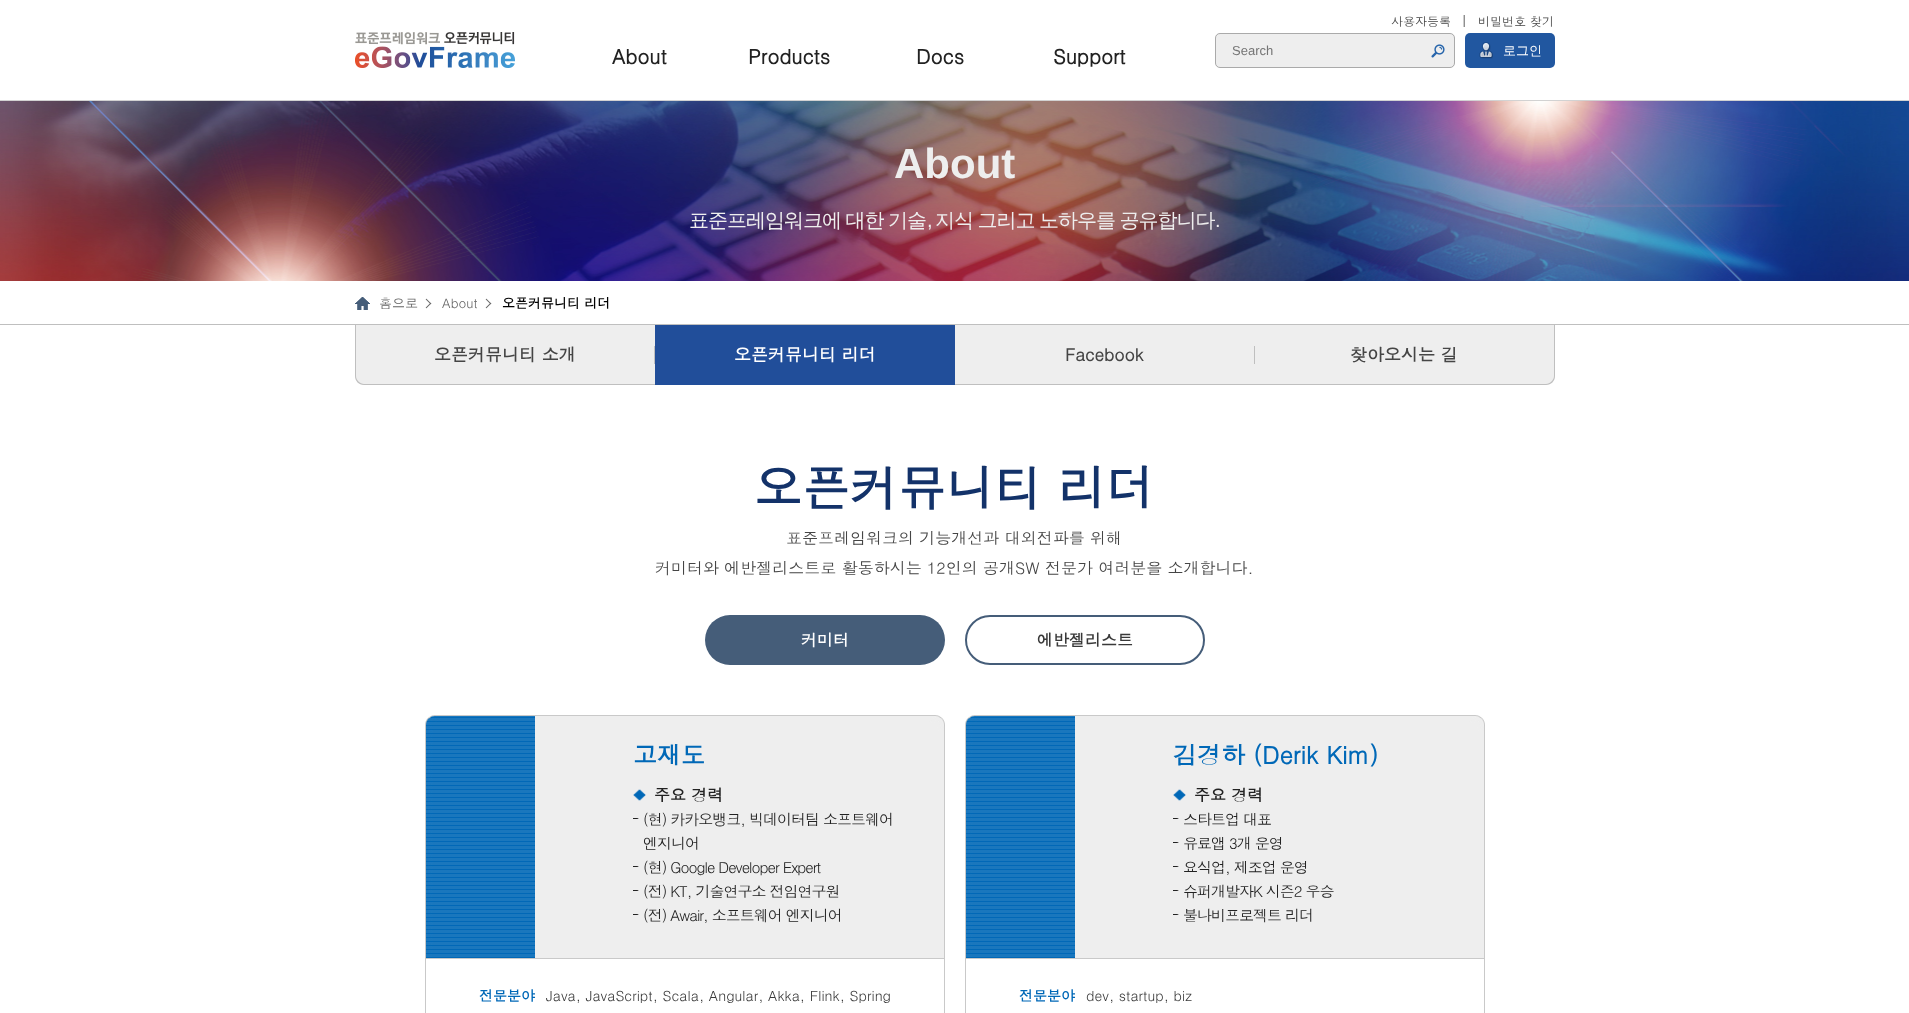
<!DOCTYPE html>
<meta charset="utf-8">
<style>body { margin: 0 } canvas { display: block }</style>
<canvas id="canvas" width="1909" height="1013"></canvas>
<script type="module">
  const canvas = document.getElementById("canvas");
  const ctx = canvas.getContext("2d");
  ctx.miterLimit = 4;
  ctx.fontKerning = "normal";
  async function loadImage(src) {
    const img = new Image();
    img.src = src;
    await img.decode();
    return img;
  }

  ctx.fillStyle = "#ffffff";
  ctx.fillRect(0, 0, 1909, 1013);
  ctx.fillStyle = "#d2d2d2";
  ctx.fillRect(0, 100, 1909, 1);
  ctx.drawImage(await loadImage("img1.png"), 1463, 15, 2, 12);
  ctx.font = "12px Dotum";
  ctx.fillStyle = "#454545";
  ctx.fillText("사용자등록", 1391, 26);
  ctx.fillText("비밀번호 찾기", 1478, 26);
  ctx.drawImage(await loadImage("img2.png"), 355, 32, 160, 36);
  ctx.font = "bold 20px Dotum";
  ctx.fillStyle = "#222222";
  ctx.fillText("About", 612, 64);
  ctx.fillText("Products", 748, 64);
  ctx.fillText("Docs", 916, 64);
  ctx.fillText("Support", 1053, 64);
  ctx.fillStyle = "#eeeeee";
  ctx.beginPath();
  ctx.roundRect(1215, 33, 240, 35, 5);
  ctx.fill();
  ctx.drawImage(await loadImage("img3.png"), 1431, 44, 14, 14);
  ctx.beginPath();
  ctx.roundRect(1215.5, 33.5, 239, 34, 4.5);
  ctx.strokeStyle = "#aaaaaa";
  ctx.stroke();
  ctx.font = "13px Liberation Sans";
  ctx.fillStyle = "#757575";
  ctx.fillText("Search", 1232, 55);
  ctx.fillStyle = "#2157a0";
  ctx.beginPath();
  ctx.roundRect(1465, 33, 90, 35, 5);
  ctx.fill();
  ctx.drawImage(await loadImage("img4.png"), 1479, 42, 14, 17);
  ctx.font = "500 13px WenQuanYi Zen Hei";
  ctx.fillStyle = "#ffffff";
  ctx.fillText("로그인", 1503, 55);
  ctx.drawImage(await loadImage("img5.png"), 0, 101, 1909, 180);
  ctx.font = "bold 42px Liberation Sans";
  ctx.fillStyle = "#eeeeee";
  ctx.fillText("About", 894, 178);
  ctx.letterSpacing = "-1px";
  ctx.wordSpacing = "-0.5px";
  ctx.font = "500 20px WenQuanYi Zen Hei";
  ctx.fillText("표준프레임워크에 대한 기술", 689, 227);
  ctx.wordSpacing = "0px";
  ctx.font = "20px Liberation Sans";
  ctx.fillText(",", 927, 227);
  ctx.wordSpacing = "-0.5px";
  ctx.font = "500 20px WenQuanYi Zen Hei";
  ctx.fillText("지식 그리고 노하우를 공유합니다", 935, 227);
  ctx.wordSpacing = "0px";
  ctx.font = "20px Liberation Sans";
  ctx.fillText(".", 1215, 227);
  ctx.fillStyle = "#bfbfbf";
  ctx.fillRect(0, 324, 1909, 1);
  ctx.drawImage(await loadImage("img6.png"), 355, 297, 15, 13);
  ctx.letterSpacing = "0px";
  ctx.font = "13px Dotum";
  ctx.fillStyle = "#666666";
  ctx.fillText("홈으로", 379, 308);
  ctx.drawImage(await loadImage("img7.png"), 425, 298, 7, 11);
  ctx.fillText("About", 442, 308);
  ctx.drawImage(await loadImage("img7.png"), 485, 298, 7, 11);
  ctx.font = "bold 13px Dotum";
  ctx.fillStyle = "#010101";
  ctx.fillText("오픈커뮤니티 리더", 502, 308);
  ctx.fillStyle = "#eeeeee";
  ctx.beginPath();
  ctx.roundRect(355, 325, 300, 60, [0, 0, 0, 9]);
  ctx.fill();
  ctx.fillStyle = "#bfbfbf";
  ctx.fillRect(654, 346, 1, 18);
  ctx.beginPath();
  ctx.moveTo(355, 325);
  ctx.lineTo(655, 325);
  ctx.lineTo(655, 385);
  ctx.lineTo(364, 385);
  ctx.bezierCurveTo(359, 385, 355, 381, 355, 376);
  ctx.closePath();
  ctx.moveTo(356, 325);
  ctx.lineTo(655, 325);
  ctx.lineTo(655, 384);
  ctx.lineTo(364, 384);
  ctx.bezierCurveTo(360, 384, 356, 380, 356, 376);
  ctx.closePath();
  ctx.fill("evenodd");
  ctx.font = "bold 17px Dotum";
  ctx.fillStyle = "#454545";
  ctx.fillText("오픈커뮤니티 소개", 434, 361);
  ctx.fillStyle = "#214e9a";
  ctx.fillRect(655, 325, 300, 60);
  ctx.fillStyle = "#ffffff";
  ctx.fillText("오픈커뮤니티 리더", 734, 361);
  ctx.fillStyle = "#eeeeee";
  ctx.fillRect(955, 325, 300, 59);
  ctx.fillStyle = "#bfbfbf";
  ctx.fillRect(1254, 346, 1, 18);
  ctx.fillRect(955, 384, 300, 1);
  ctx.fillStyle = "#454545";
  ctx.fillText("Facebook", 1065, 361);
  ctx.fillStyle = "#eeeeee";
  ctx.beginPath();
  ctx.roundRect(1255, 325, 300, 60, [0, 0, 9, 0]);
  ctx.fill();
  ctx.fillStyle = "#bfbfbf";
  ctx.beginPath();
  ctx.moveTo(1255, 325);
  ctx.lineTo(1555, 325);
  ctx.lineTo(1555, 376);
  ctx.bezierCurveTo(1555, 381, 1551, 385, 1546, 385);
  ctx.lineTo(1255, 385);
  ctx.closePath();
  ctx.moveTo(1255, 325);
  ctx.lineTo(1554, 325);
  ctx.lineTo(1554, 376);
  ctx.bezierCurveTo(1554, 380, 1550, 384, 1546, 384);
  ctx.lineTo(1255, 384);
  ctx.closePath();
  ctx.fill("evenodd");
  ctx.fillStyle = "#454545";
  ctx.fillText("찾아오시는 길", 1350, 361);
  ctx.font = "bold 48px Dotum";
  ctx.fillStyle = "#133269";
  ctx.fillText("오픈커뮤니티 리더", 754, 506);
  ctx.font = "16px Dotum";
  ctx.fillStyle = "#454545";
  ctx.fillText("표준프레임워크의 기능개선과 대외전파를 위해", 786, 544);
  ctx.fillText("커미터와 에반젤리스트로 활동하시는 12인의 공개SW 전문가 여러분을 소개합니다.", 655, 574);
  ctx.fillStyle = "#455d79";
  ctx.beginPath();
  ctx.roundRect(705, 615, 240, 50, 25);
  ctx.fill();
  ctx.font = "bold 16px Dotum";
  ctx.fillStyle = "#ffffff";
  ctx.fillText("커미터", 801, 646);
  ctx.beginPath();
  ctx.roundRect(966, 616, 238, 48, 24);
  ctx.strokeStyle = "#455d79";
  ctx.lineWidth = 2;
  ctx.stroke();
  ctx.fillStyle = "#393939";
  ctx.fillText("에반젤리스트", 1037, 646);
  ctx.drawImage(await loadImage("img8.png"), 425, 715, 520, 243);
  ctx.font = "bold 24px Dotum";
  ctx.fillStyle = "#0068b7";
  ctx.fillText("고재도", 633, 764);
  ctx.drawImage(await loadImage("img9.png"), 633, 789, 13, 12);
  ctx.font = "bold 16px Dotum";
  ctx.fillStyle = "#222222";
  ctx.fillText("주요 경력", 654, 801);
  ctx.drawImage(await loadImage("img10.png"), 633, 818, 6, 1);
  ctx.letterSpacing = "-1px";
  ctx.font = "15px Dotum";
  ctx.fillText("(현) 카카오뱅크, 빅데이터팀 소프트웨어", 643, 825);
  ctx.fillText("엔지니어", 643, 849);
  ctx.drawImage(await loadImage("img10.png"), 633, 866, 6, 1);
  ctx.fillText("(현) Google Developer Expert", 643, 873);
  ctx.drawImage(await loadImage("img10.png"), 633, 890, 6, 1);
  ctx.fillText("(전) KT, 기술연구소 전임연구원", 643, 897);
  ctx.drawImage(await loadImage("img10.png"), 633, 914, 6, 1);
  ctx.fillText("(전) Awair, 소프트웨어 엔지니어", 643, 921);
  ctx.strokeStyle = "#c9c9c9";
  ctx.lineWidth = 1;
  ctx.strokeRect(425.5, 958.5, 519, 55);
  ctx.letterSpacing = "0px";
  ctx.font = "bold 14px Dotum";
  ctx.fillStyle = "#0068b7";
  ctx.fillText("전문분야", 479, 1001);
  ctx.font = "14px Dotum";
  ctx.fillStyle = "#393939";
  ctx.fillText("Java, JavaScript, Scala, Angular, Akka, Flink, Spring", 546, 1001);
  ctx.drawImage(await loadImage("img8.png"), 965, 715, 520, 243);
  ctx.font = "bold 24px Dotum";
  ctx.fillStyle = "#0068b7";
  ctx.fillText("김경하 (Derik Kim)", 1173, 764);
  ctx.drawImage(await loadImage("img9.png"), 1173, 789, 13, 12);
  ctx.font = "bold 16px Dotum";
  ctx.fillStyle = "#222222";
  ctx.fillText("주요 경력", 1194, 801);
  ctx.drawImage(await loadImage("img11.png"), 1173, 818, 6, 1);
  ctx.letterSpacing = "-1px";
  ctx.font = "15px Dotum";
  ctx.fillText("스타트업 대표", 1183, 825);
  ctx.drawImage(await loadImage("img11.png"), 1173, 842, 6, 1);
  ctx.fillText("유료앱 3개 운영", 1183, 849);
  ctx.drawImage(await loadImage("img11.png"), 1173, 866, 6, 1);
  ctx.fillText("요식업, 제조업 운영", 1183, 873);
  ctx.drawImage(await loadImage("img11.png"), 1173, 890, 6, 1);
  ctx.fillText("슈퍼개발자K 시즌2 우승", 1183, 897);
  ctx.drawImage(await loadImage("img11.png"), 1173, 914, 6, 1);
  ctx.fillText("불나비프로젝트 리더", 1183, 921);
  ctx.strokeRect(965.5, 958.5, 519, 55);
  ctx.letterSpacing = "0px";
  ctx.font = "bold 14px Dotum";
  ctx.fillStyle = "#0068b7";
  ctx.fillText("전문분야", 1019, 1001);
  ctx.font = "14px Dotum";
  ctx.fillStyle = "#393939";
  ctx.fillText("dev, startup, biz", 1086, 1001);
</script>
